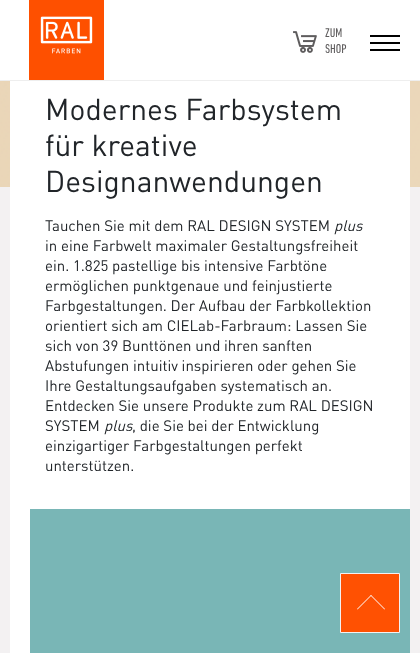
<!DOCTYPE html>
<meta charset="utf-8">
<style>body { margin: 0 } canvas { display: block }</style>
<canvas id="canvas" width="420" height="653"></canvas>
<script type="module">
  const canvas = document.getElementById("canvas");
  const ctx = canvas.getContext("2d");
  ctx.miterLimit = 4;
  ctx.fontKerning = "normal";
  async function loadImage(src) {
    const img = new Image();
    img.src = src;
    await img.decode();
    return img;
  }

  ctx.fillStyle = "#f3f1f2";
  ctx.fillRect(0, 0, 420, 653);
  ctx.fillStyle = "#ffffff";
  ctx.fillRect(0, 0, 420, 80);
  ctx.fillStyle = "#eeeeee";
  ctx.fillRect(0, 80, 420, 1);
  ctx.drawImage(await loadImage("img1.png"), 29, 0, 75, 80);
  ctx.drawImage(await loadImage("img2.png"), 293, 31, 24, 22);
  ctx.font = "13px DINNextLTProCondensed";
  ctx.fillStyle = "#5e5c5d";
  ctx.fillText("ZUM", 325, 37);
  ctx.fillText("SHOP", 325, 53);
  ctx.fillStyle = "#000000";
  ctx.fillRect(370, 35, 30, 2);
  ctx.fillRect(370, 42, 30, 2);
  ctx.fillRect(370, 49, 30, 2);
  ctx.drawImage(await loadImage("img3.png"), 0, 81, 420, 106);
  ctx.fillStyle = "#ffffff";
  ctx.fillRect(10, 81, 400, 572);
  ctx.font = "30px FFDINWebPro";
  ctx.fillStyle = "#212529";
  ctx.fillText("Modernes Farbsystem", 45, 120);
  ctx.fillText("für kreative", 45, 156);
  ctx.fillText("Designanwendungen", 45, 192);
  ctx.font = "15px FFDINWebPro";
  ctx.fillText("Tauchen Sie mit dem RAL DESIGN SYSTEM", 45, 231);
  ctx.font = "italic 15px FFDINWebPro";
  ctx.fillText("plus", 334, 231);
  ctx.font = "15px FFDINWebPro";
  ctx.fillText("in eine Farbwelt maximaler Gestaltungsfreiheit", 45, 251);
  ctx.fillText("ein. 1.825 pastellige bis intensive Farbtöne", 45, 271);
  ctx.fillText("ermöglichen punktgenaue und feinjustierte", 45, 291);
  ctx.fillText("Farbgestaltungen. Der Aufbau der Farbkollektion", 45, 311);
  ctx.fillText("orientiert sich am CIELab-Farbraum: Lassen Sie", 45, 331);
  ctx.fillText("sich von 39 Bunttönen und ihren sanften", 45, 351);
  ctx.fillText("Abstufungen intuitiv inspirieren oder gehen Sie", 45, 371);
  ctx.fillText("Ihre Gestaltungsaufgaben systematisch an.", 45, 391);
  ctx.fillText("Entdecken Sie unsere Produkte zum RAL DESIGN", 45, 411);
  ctx.fillText("SYSTEM", 45, 431);
  ctx.font = "italic 15px FFDINWebPro";
  ctx.fillText("plus", 104, 431);
  ctx.font = "15px FFDINWebPro";
  ctx.fillText(", die Sie bei der Entwicklung", 132, 431);
  ctx.fillText("einzigartiger Farbgestaltungen perfekt", 45, 451);
  ctx.fillText("unterstützen.", 45, 471);
  ctx.fillStyle = "#79b6b6";
  ctx.fillRect(30, 509, 380, 144);
  ctx.fillStyle = "#ff5102";
  ctx.beginPath();
  ctx.rect(340.5, 573.5, 59, 59);
  ctx.fill();
  ctx.strokeStyle = "#f3f1f2";
  ctx.stroke();
  ctx.fillStyle = "#ffffff";
  ctx.beginPath();
  ctx.moveTo(371, 595);
  ctx.lineTo(385, 609);
  ctx.lineTo(384.5, 609.5);
  ctx.lineTo(370.5, 595.5);
  ctx.closePath();
  ctx.fill();
  ctx.beginPath();
  ctx.moveTo(371, 595);
  ctx.lineTo(371.5, 595.5);
  ctx.lineTo(357.5, 609.5);
  ctx.lineTo(357, 609);
  ctx.closePath();
  ctx.fill();
</script>
